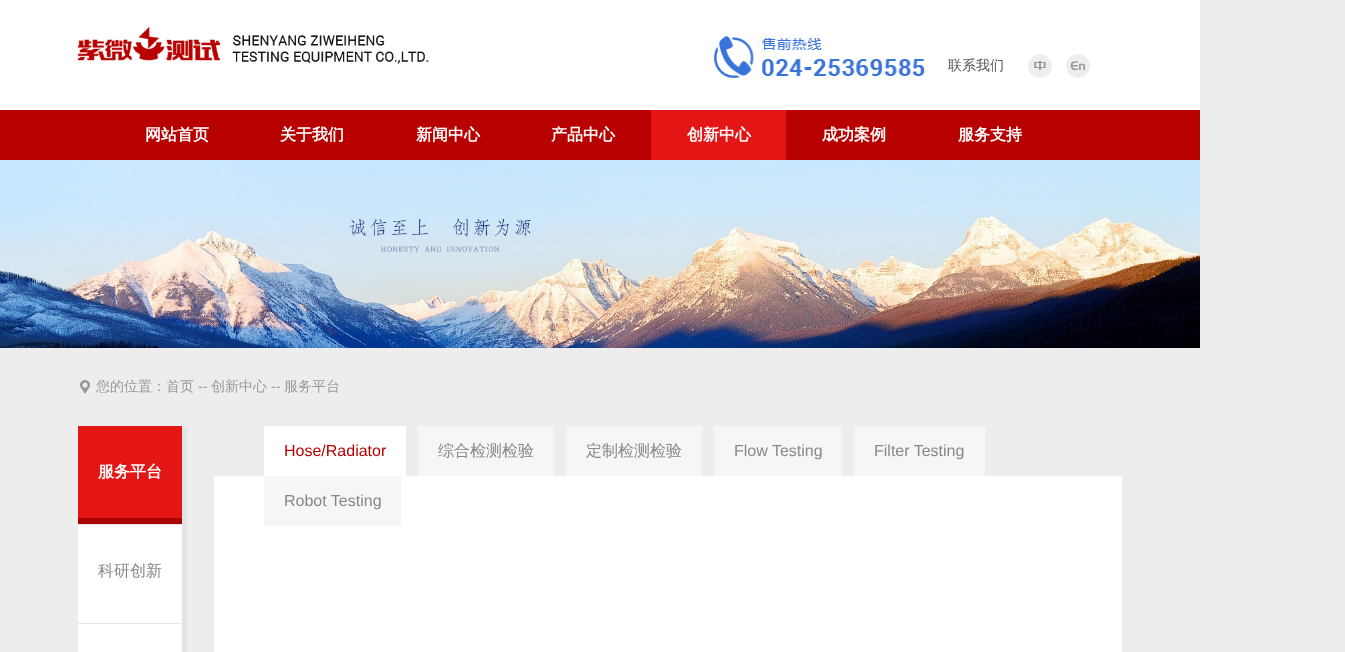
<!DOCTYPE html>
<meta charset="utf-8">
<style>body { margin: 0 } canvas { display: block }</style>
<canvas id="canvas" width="1345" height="652"></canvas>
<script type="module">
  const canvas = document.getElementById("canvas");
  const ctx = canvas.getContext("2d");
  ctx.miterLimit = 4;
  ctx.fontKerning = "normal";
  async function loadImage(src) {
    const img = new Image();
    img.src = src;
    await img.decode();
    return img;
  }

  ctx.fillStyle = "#ededed";
  ctx.fillRect(0, 0, 1345, 652);
  ctx.fillStyle = "#ffffff";
  ctx.fillRect(0, 0, 1200, 110);
  ctx.drawImage(await loadImage("img1.png"), 78, 26, 351, 38);
  ctx.drawImage(await loadImage("img2.png"), 714, 36, 211, 42);
  ctx.font = "500 14px WenQuanYi Zen Hei";
  ctx.fillStyle = "#555555";
  ctx.fillText("联系我们", 948, 70);
  ctx.drawImage(await loadImage("img3.png"), 1028, 54, 24, 24);
  ctx.drawImage(await loadImage("img4.png"), 1066, 54, 24, 24);
  ctx.fillStyle = "#b90000";
  ctx.fillRect(0, 110, 1200, 50);
  ctx.font = "bold 16px WenQuanYi Zen Hei";
  ctx.fillStyle = "#ffffff";
  ctx.fillText("网站首页", 145, 140);
  ctx.fillText("关于我们", 280, 140);
  ctx.fillText("新闻中心", 416, 140);
  ctx.fillText("产品中心", 551, 140);
  ctx.fillStyle = "#e41515";
  ctx.fillRect(651, 110, 135, 50);
  ctx.fillStyle = "#ffffff";
  ctx.fillText("创新中心", 687, 140);
  ctx.fillText("成功案例", 822, 140);
  ctx.fillText("服务支持", 958, 140);
  ctx.drawImage(await loadImage("img5.png"), 0, 160, 1200, 188);
  ctx.drawImage(await loadImage("img6.png"), 80, 380, 10, 14);
  ctx.font = "500 14px WenQuanYi Zen Hei";
  ctx.fillStyle = "#999999";
  ctx.fillText("您的位置：首页", 96, 391);
  ctx.font = "14px Liberation Sans";
  ctx.fillText("--", 198, 391);
  ctx.font = "500 14px WenQuanYi Zen Hei";
  ctx.fillText("创新中心", 211, 391);
  ctx.font = "14px Liberation Sans";
  ctx.fillText("--", 271, 391);
  ctx.font = "500 14px WenQuanYi Zen Hei";
  ctx.fillText("服务平台", 284, 391);
  ctx.fillStyle = "#ffffff";
  ctx.fillRect(78, 525, 104, 127);
  ctx.fillStyle = "#e41515";
  ctx.fillRect(78, 426, 104, 92);
  ctx.fillStyle = "#a90000";
  ctx.fillRect(78, 518, 104, 6);
  ctx.font = "bold 16px WenQuanYi Zen Hei";
  ctx.fillStyle = "#ffffff";
  ctx.fillText("服务平台", 98, 477);
  ctx.fillStyle = "#e4e4e4";
  ctx.fillRect(182, 427, 5, 225);
  ctx.fillRect(78, 524, 104, 1);
  ctx.font = "500 16px WenQuanYi Zen Hei";
  ctx.fillStyle = "#888888";
  ctx.fillText("科研创新", 98, 576);
  ctx.fillStyle = "#e4e4e4";
  ctx.fillRect(78, 623, 104, 1);
  ctx.fillStyle = "#ffffff";
  ctx.fillRect(264, 426, 142, 50);
  ctx.font = "16px Liberation Sans";
  ctx.fillStyle = "#b90000";
  ctx.fillText("Hose/Radiator", 284, 456);
  ctx.fillStyle = "#f6f6f6";
  ctx.fillRect(418, 426, 136, 50);
  ctx.font = "500 16px WenQuanYi Zen Hei";
  ctx.fillStyle = "#888888";
  ctx.fillText("综合检测检验", 438, 456);
  ctx.fillStyle = "#f6f6f6";
  ctx.fillRect(566, 426, 136, 50);
  ctx.fillStyle = "#888888";
  ctx.fillText("定制检测检验", 586, 456);
  ctx.fillStyle = "#f6f6f6";
  ctx.fillRect(714, 426, 128, 50);
  ctx.font = "16px Liberation Sans";
  ctx.fillStyle = "#888888";
  ctx.fillText("Flow Testing", 734, 456);
  ctx.fillStyle = "#f6f6f6";
  ctx.fillRect(854, 426, 131, 50);
  ctx.fillStyle = "#888888";
  ctx.fillText("Filter Testing", 874, 456);
  ctx.fillStyle = "#ffffff";
  ctx.fillRect(214, 476, 908, 176);
  ctx.fillStyle = "#f6f6f6";
  ctx.fillRect(264, 476, 137, 50);
  ctx.fillStyle = "#888888";
  ctx.fillText("Robot Testing", 284, 506);
</script>
